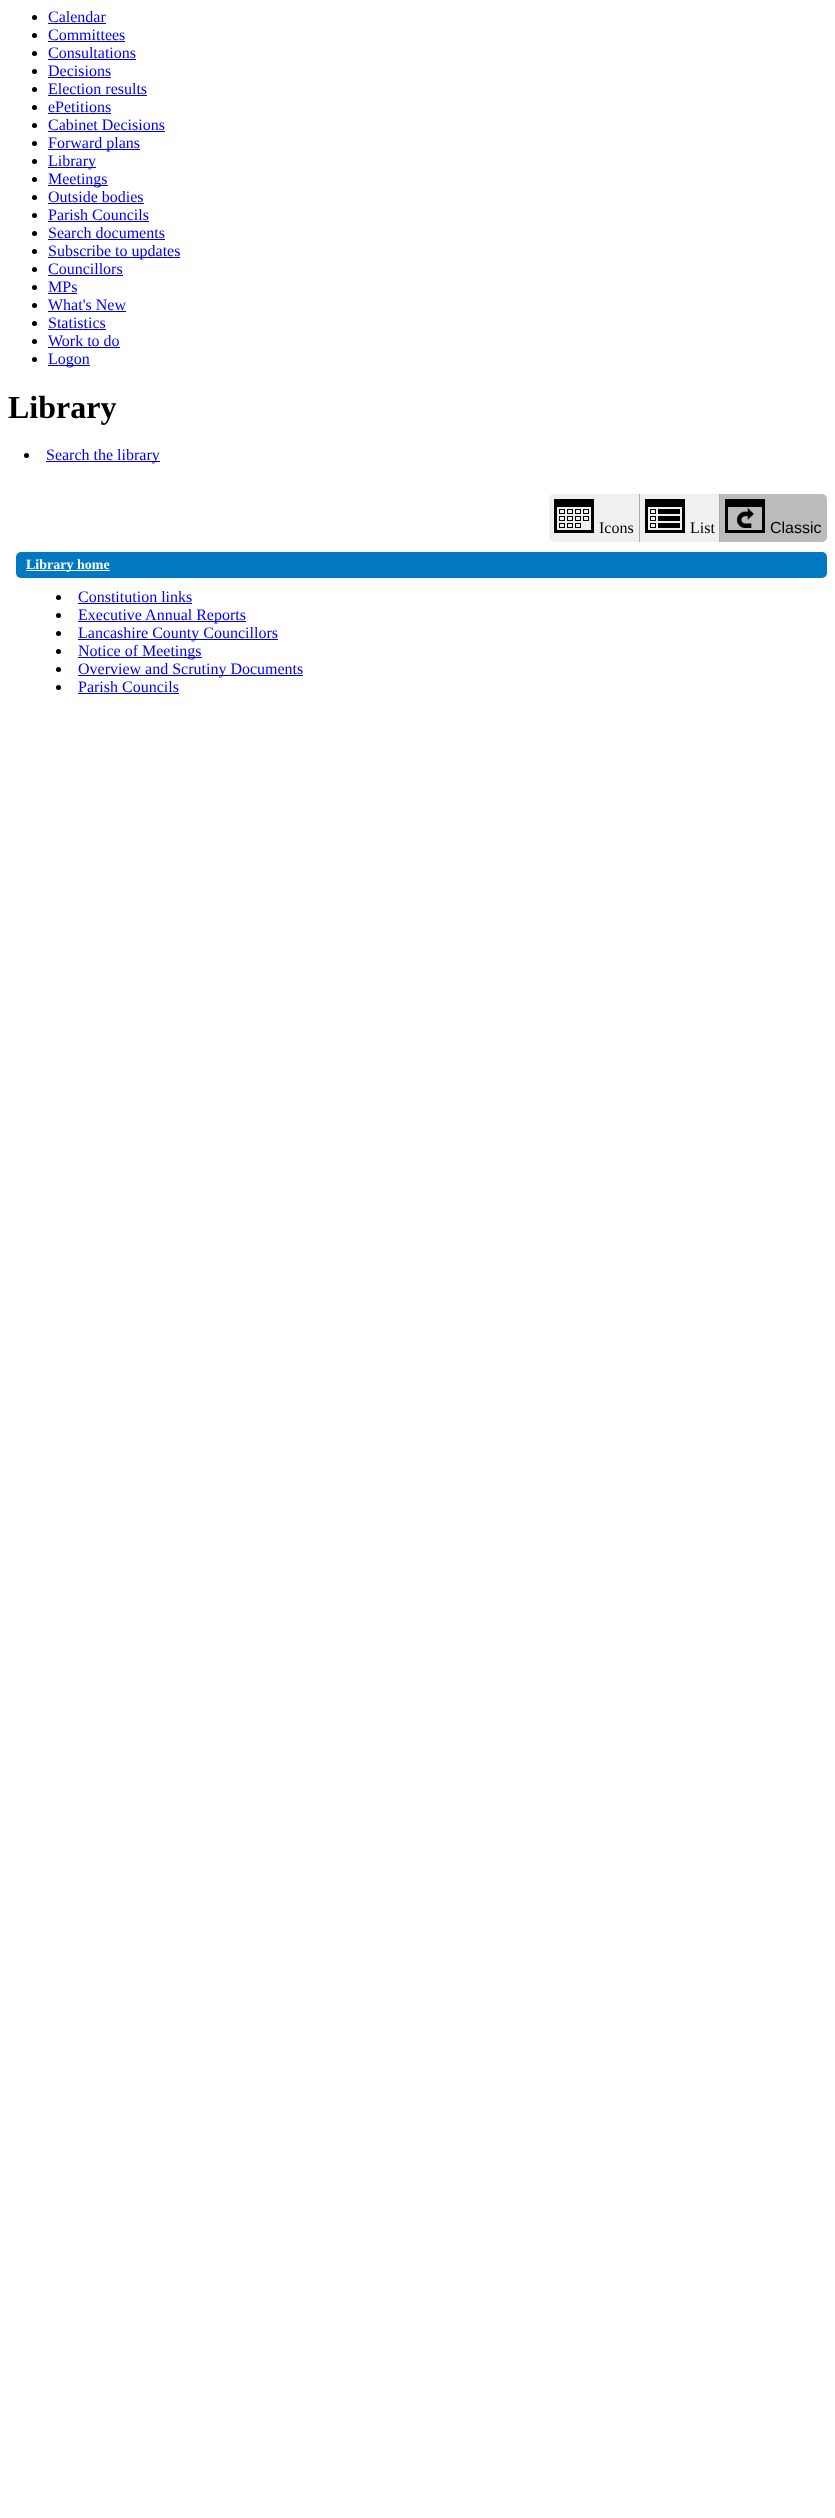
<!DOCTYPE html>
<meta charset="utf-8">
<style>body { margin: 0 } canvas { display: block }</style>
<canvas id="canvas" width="835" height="2518"></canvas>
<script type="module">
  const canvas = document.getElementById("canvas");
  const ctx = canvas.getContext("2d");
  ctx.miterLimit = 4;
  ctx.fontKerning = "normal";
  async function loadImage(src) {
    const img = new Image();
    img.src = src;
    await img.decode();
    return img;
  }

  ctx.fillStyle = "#ffffff";
  ctx.fillRect(0, 0, 835, 2518);
  ctx.fillStyle = "#000000";
  ctx.beginPath();
  ctx.arc(34.5, 17.5, 2.5, 0, Math.PI * 2);
  ctx.fill();
  ctx.font = "16px Liberation Serif";
  ctx.fillStyle = "#0000ee";
  ctx.fillText("Calendar", 48, 22);
  ctx.fillRect(48, 23, 58, 1);
  ctx.fillStyle = "#000000";
  ctx.beginPath();
  ctx.arc(34.5, 35.5, 2.5, 0, Math.PI * 2);
  ctx.fill();
  ctx.fillStyle = "#0000ee";
  ctx.fillText("Committees", 48, 40);
  ctx.fillRect(48, 41, 77, 1);
  ctx.fillStyle = "#000000";
  ctx.beginPath();
  ctx.arc(34.5, 53.5, 2.5, 0, Math.PI * 2);
  ctx.fill();
  ctx.fillStyle = "#0000ee";
  ctx.fillText("Consultations", 48, 58);
  ctx.fillRect(48, 59, 88, 1);
  ctx.fillStyle = "#000000";
  ctx.beginPath();
  ctx.arc(34.5, 71.5, 2.5, 0, Math.PI * 2);
  ctx.fill();
  ctx.fillStyle = "#0000ee";
  ctx.fillText("Decisions", 48, 76);
  ctx.fillRect(48, 77, 63, 1);
  ctx.fillStyle = "#000000";
  ctx.beginPath();
  ctx.arc(34.5, 89.5, 2.5, 0, Math.PI * 2);
  ctx.fill();
  ctx.fillStyle = "#0000ee";
  ctx.fillText("Election results", 48, 94);
  ctx.fillRect(48, 95, 99, 1);
  ctx.fillStyle = "#000000";
  ctx.beginPath();
  ctx.arc(34.5, 107.5, 2.5, 0, Math.PI * 2);
  ctx.fill();
  ctx.fillStyle = "#0000ee";
  ctx.fillText("ePetitions", 48, 112);
  ctx.fillRect(48, 113, 63, 1);
  ctx.fillStyle = "#000000";
  ctx.beginPath();
  ctx.arc(34.5, 125.5, 2.5, 0, Math.PI * 2);
  ctx.fill();
  ctx.fillStyle = "#0000ee";
  ctx.fillText("Cabinet Decisions", 48, 130);
  ctx.fillRect(48, 131, 117, 1);
  ctx.fillStyle = "#000000";
  ctx.beginPath();
  ctx.arc(34.5, 143.5, 2.5, 0, Math.PI * 2);
  ctx.fill();
  ctx.fillStyle = "#0000ee";
  ctx.fillRect(48, 149, 92, 1);
  ctx.fillText("Forward plans", 48, 148);
  ctx.fillStyle = "#000000";
  ctx.beginPath();
  ctx.arc(34.5, 161.5, 2.5, 0, Math.PI * 2);
  ctx.fill();
  ctx.fillStyle = "#0000ee";
  ctx.fillRect(48, 167, 48, 1);
  ctx.fillText("Library", 48, 166);
  ctx.fillStyle = "#000000";
  ctx.beginPath();
  ctx.arc(34.5, 179.5, 2.5, 0, Math.PI * 2);
  ctx.fill();
  ctx.fillStyle = "#0000ee";
  ctx.fillRect(48, 185, 60, 1);
  ctx.fillText("Meetings", 48, 184);
  ctx.fillStyle = "#000000";
  ctx.beginPath();
  ctx.arc(34.5, 197.5, 2.5, 0, Math.PI * 2);
  ctx.fill();
  ctx.fillStyle = "#0000ee";
  ctx.fillText("Outside bodies", 48, 202);
  ctx.fillRect(48, 203, 96, 1);
  ctx.fillStyle = "#000000";
  ctx.beginPath();
  ctx.arc(34.5, 215.5, 2.5, 0, Math.PI * 2);
  ctx.fill();
  ctx.fillStyle = "#0000ee";
  ctx.fillText("Parish Councils", 48, 220);
  ctx.fillRect(48, 221, 101, 1);
  ctx.fillStyle = "#000000";
  ctx.beginPath();
  ctx.arc(34.5, 233.5, 2.5, 0, Math.PI * 2);
  ctx.fill();
  ctx.fillStyle = "#0000ee";
  ctx.fillText("Search documents", 48, 238);
  ctx.fillRect(48, 239, 117, 1);
  ctx.fillStyle = "#000000";
  ctx.beginPath();
  ctx.arc(34.5, 251.5, 2.5, 0, Math.PI * 2);
  ctx.fill();
  ctx.fillStyle = "#0000ee";
  ctx.fillRect(48, 257, 132, 1);
  ctx.fillText("Subscribe to updates", 48, 256);
  ctx.fillStyle = "#000000";
  ctx.beginPath();
  ctx.arc(34.5, 269.5, 2.5, 0, Math.PI * 2);
  ctx.fill();
  ctx.fillStyle = "#0000ee";
  ctx.fillText("Councillors", 48, 274);
  ctx.fillRect(48, 275, 75, 1);
  ctx.fillStyle = "#000000";
  ctx.beginPath();
  ctx.arc(34.5, 287.5, 2.5, 0, Math.PI * 2);
  ctx.fill();
  ctx.fillStyle = "#0000ee";
  ctx.fillText("MPs", 48, 292);
  ctx.fillRect(48, 293, 29, 1);
  ctx.fillStyle = "#000000";
  ctx.beginPath();
  ctx.arc(34.5, 305.5, 2.5, 0, Math.PI * 2);
  ctx.fill();
  ctx.fillStyle = "#0000ee";
  ctx.fillText("What's New", 48, 310);
  ctx.fillRect(48, 311, 78, 1);
  ctx.fillStyle = "#000000";
  ctx.beginPath();
  ctx.arc(34.5, 323.5, 2.5, 0, Math.PI * 2);
  ctx.fill();
  ctx.fillStyle = "#0000ee";
  ctx.fillText("Statistics", 48, 328);
  ctx.fillRect(48, 329, 58, 1);
  ctx.fillStyle = "#000000";
  ctx.beginPath();
  ctx.arc(34.5, 341.5, 2.5, 0, Math.PI * 2);
  ctx.fill();
  ctx.fillStyle = "#0000ee";
  ctx.fillText("Work to do", 48, 346);
  ctx.fillRect(48, 347, 72, 1);
  ctx.fillStyle = "#000000";
  ctx.beginPath();
  ctx.arc(34.5, 359.5, 2.5, 0, Math.PI * 2);
  ctx.fill();
  ctx.fillStyle = "#0000ee";
  ctx.fillRect(48, 365, 42, 1);
  ctx.fillText("Logon", 48, 364);
  ctx.font = "bold 32px Liberation Serif";
  ctx.fillStyle = "#000000";
  ctx.fillText("Library", 8, 418);
  ctx.beginPath();
  ctx.arc(26.5, 455.5, 2.5, 0, Math.PI * 2);
  ctx.fill();
  ctx.fillStyle = "#0000ee";
  ctx.fillRect(46, 461, 114, 1);
  ctx.font = "16px Liberation Serif";
  ctx.fillText("Search the library", 46, 460);
  ctx.fillStyle = "#f0f0f0";
  ctx.beginPath();
  ctx.roundRect(549, 494, 91, 48, [5, 0, 0, 5]);
  ctx.fill();
  ctx.fillStyle = "#aaaaaa";
  ctx.fillRect(639, 494, 1, 48);
  ctx.drawImage(await loadImage("img1.png"), 554, 499, 40, 34);
  ctx.fillStyle = "#000000";
  ctx.fillText("Icons", 599, 533);
  ctx.fillStyle = "#f0f0f0";
  ctx.fillRect(640, 494, 79, 48);
  ctx.drawImage(await loadImage("img2.png"), 645, 499, 40, 34);
  ctx.fillStyle = "#000000";
  ctx.fillText("List", 690, 533);
  ctx.fillStyle = "#bbbbbb";
  ctx.beginPath();
  ctx.roundRect(719, 494, 108, 48, [0, 5, 5, 0]);
  ctx.fill();
  ctx.fillStyle = "#aaaaaa";
  ctx.fillRect(719, 494, 1, 48);
  ctx.drawImage(await loadImage("img3.png"), 725, 499, 40, 34);
  ctx.font = "16px Liberation Sans";
  ctx.fillStyle = "#000000";
  ctx.fillText("Classic", 770, 533);
  ctx.fillStyle = "#0079c2";
  ctx.beginPath();
  ctx.roundRect(16, 552, 811, 26, 5);
  ctx.fill();
  ctx.fillStyle = "#ffffff";
  ctx.fillRect(26, 570, 84, 1);
  ctx.font = "bold 14px Liberation Serif";
  ctx.fillText("Library home", 26, 569);
  ctx.fillStyle = "#000000";
  ctx.beginPath();
  ctx.arc(58.5, 597.5, 2.5, 0, Math.PI * 2);
  ctx.fill();
  ctx.font = "16px Liberation Serif";
  ctx.fillStyle = "#0000ee";
  ctx.fillText("Constitution links", 78, 602);
  ctx.fillRect(78, 603, 114, 1);
  ctx.fillStyle = "#000000";
  ctx.beginPath();
  ctx.arc(58.5, 615.5, 2.5, 0, Math.PI * 2);
  ctx.fill();
  ctx.fillStyle = "#0000ee";
  ctx.fillRect(78, 621, 168, 1);
  ctx.fillText("Executive Annual Reports", 78, 620);
  ctx.fillStyle = "#000000";
  ctx.beginPath();
  ctx.arc(58.5, 633.5, 2.5, 0, Math.PI * 2);
  ctx.fill();
  ctx.fillStyle = "#0000ee";
  ctx.fillRect(78, 639, 200, 1);
  ctx.fillText("Lancashire County Councillors", 78, 638);
  ctx.fillStyle = "#000000";
  ctx.beginPath();
  ctx.arc(58.5, 651.5, 2.5, 0, Math.PI * 2);
  ctx.fill();
  ctx.fillStyle = "#0000ee";
  ctx.fillRect(78, 657, 124, 1);
  ctx.fillText("Notice of Meetings", 78, 656);
  ctx.fillStyle = "#000000";
  ctx.beginPath();
  ctx.arc(58.5, 669.5, 2.5, 0, Math.PI * 2);
  ctx.fill();
  ctx.fillStyle = "#0000ee";
  ctx.fillRect(78, 675, 225, 1);
  ctx.fillText("Overview and Scrutiny Documents", 78, 674);
  ctx.fillStyle = "#000000";
  ctx.beginPath();
  ctx.arc(58.5, 687.5, 2.5, 0, Math.PI * 2);
  ctx.fill();
  ctx.fillStyle = "#0000ee";
  ctx.fillText("Parish Councils", 78, 692);
  ctx.fillRect(78, 693, 101, 1);
</script>
